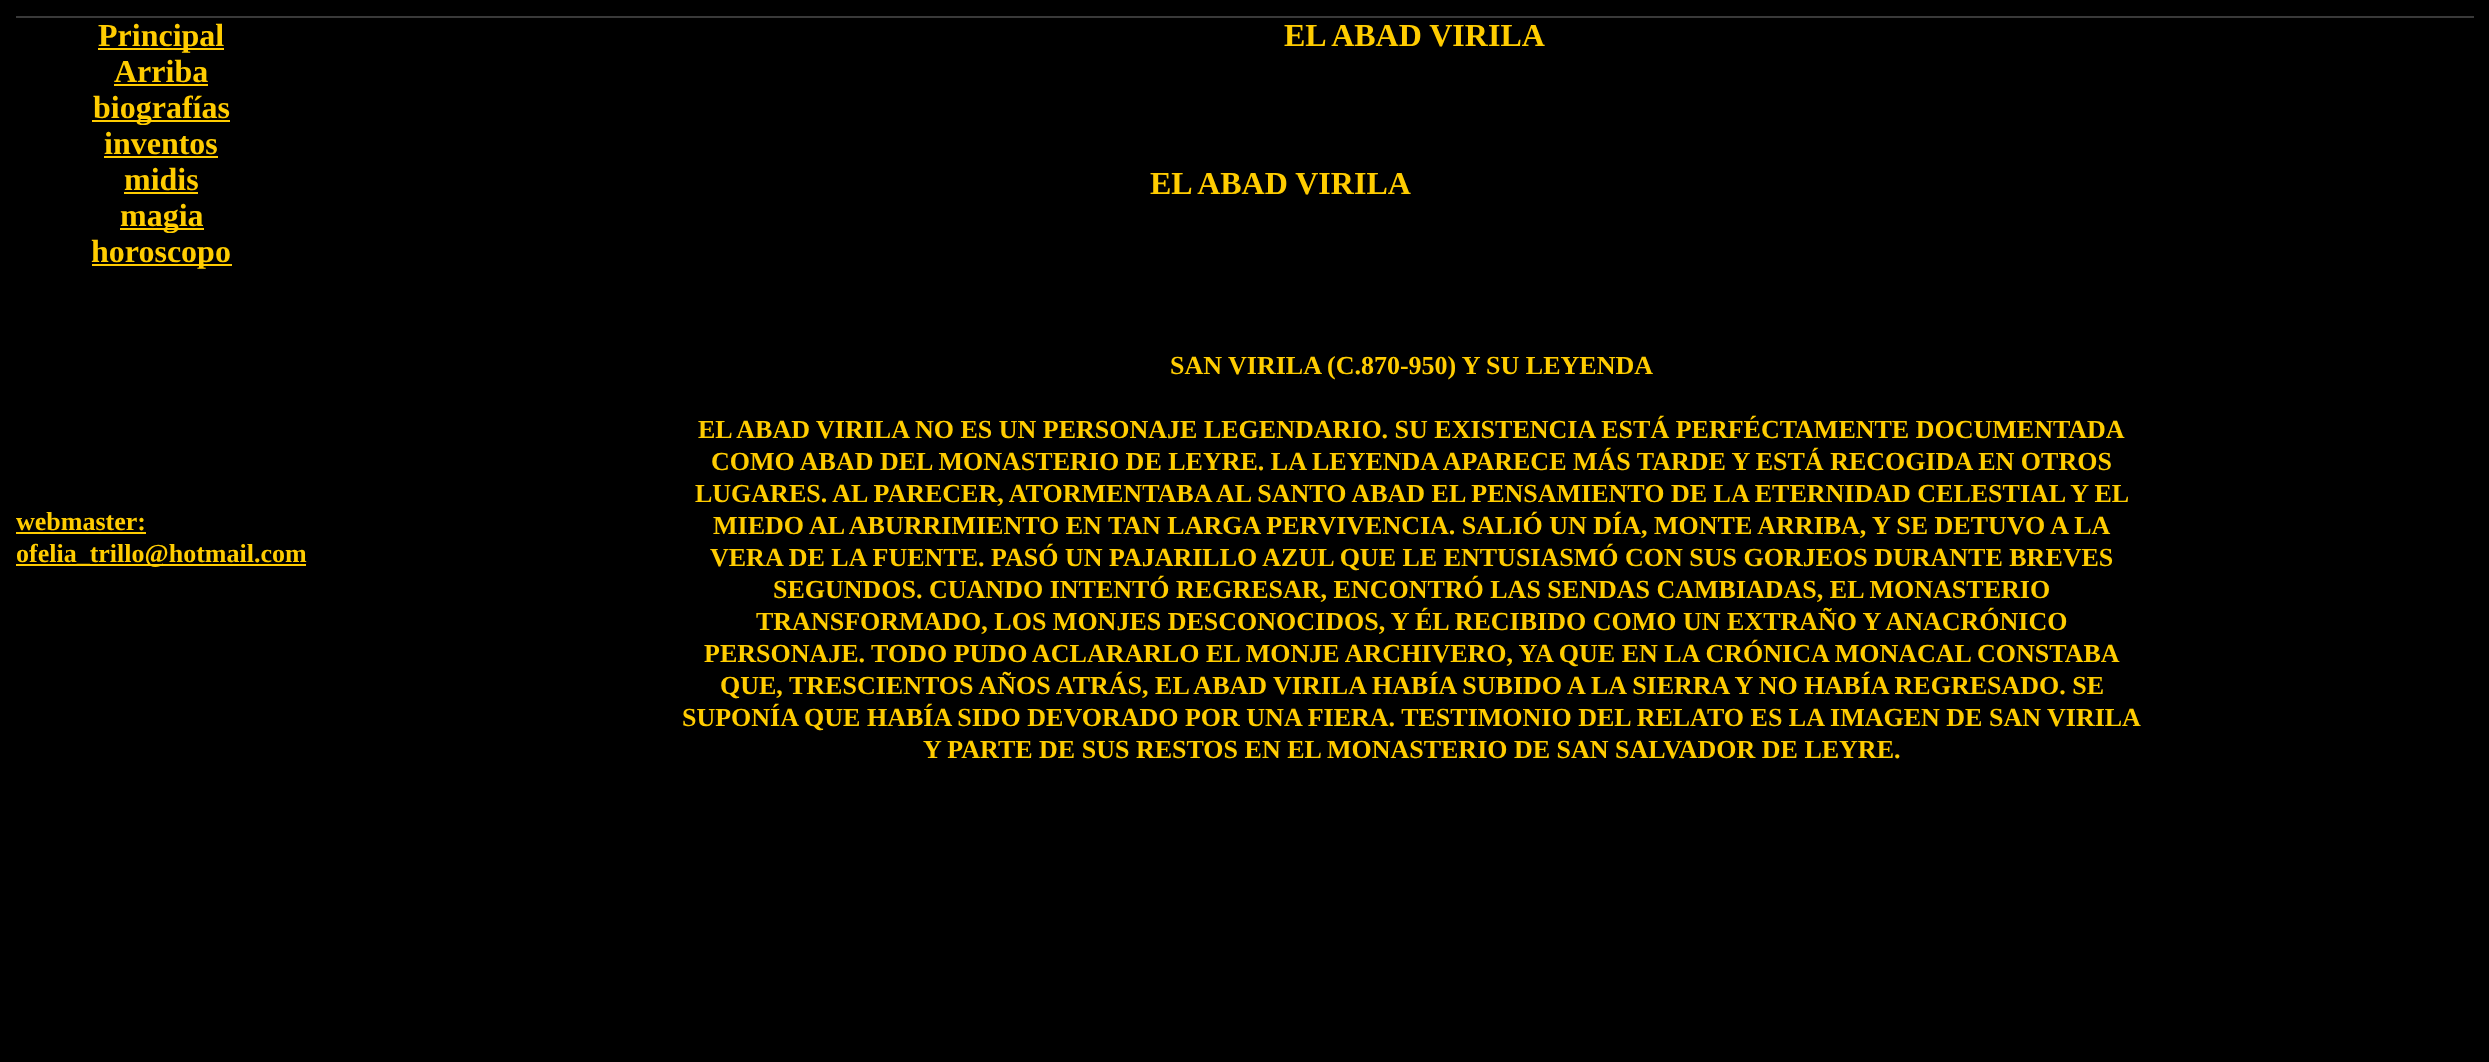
<!DOCTYPE html>
<meta charset="utf-8">
<style>body { margin: 0 } canvas { display: block }</style>
<canvas id="canvas" width="2489" height="1062"></canvas>
<script type="module">
  const canvas = document.getElementById("canvas");
  const ctx = canvas.getContext("2d");
  ctx.miterLimit = 4;
  ctx.fontKerning = "normal";

  ctx.fillStyle = "#000000";
  ctx.fillRect(0, 0, 2489, 1062);
  ctx.fillStyle = "#393939";
  ctx.fillRect(16, 16, 2458, 2);
  ctx.fillStyle = "#ffcc00";
  ctx.fillRect(98, 48, 126, 2);
  ctx.font = "bold 32px Liberation Serif";
  ctx.fillText("Principal", 98, 46);
  ctx.fillText("Arriba", 114, 82);
  ctx.fillRect(114, 84, 94, 2);
  ctx.fillRect(92, 120, 138, 2);
  ctx.fillText("biografías", 93, 118);
  ctx.fillText("inventos", 104, 154);
  ctx.fillRect(104, 156, 114, 2);
  ctx.fillText("midis", 124, 190);
  ctx.fillRect(124, 192, 74, 2);
  ctx.fillRect(120, 228, 84, 2);
  ctx.fillText("magia", 120, 226);
  ctx.fillRect(92, 264, 140, 2);
  ctx.fillText("horoscopo", 91, 262);
  ctx.font = "bold 26px Liberation Serif";
  ctx.fillText("webmaster:", 16, 530);
  ctx.fillRect(16, 532, 130, 2);
  ctx.fillRect(16, 564, 290, 2);
  ctx.fillText("ofelia_trillo@hotmail.com", 16, 562);
  ctx.font = "bold 32px Liberation Serif";
  ctx.fillText("EL ABAD VIRILA", 1284, 46);
  ctx.fillText("EL ABAD VIRILA", 1150, 194);
  ctx.font = "bold 26px Liberation Serif";
  ctx.fillText("SAN VIRILA (C.870-950) Y SU LEYENDA", 1170, 374);
  ctx.fillText("EL ABAD VIRILA NO ES UN PERSONAJE LEGENDARIO. SU EXISTENCIA ESTÁ PERFÉCTAMENTE DOCUMENTADA", 698, 438);
  ctx.fillText("COMO ABAD DEL MONASTERIO DE LEYRE. LA LEYENDA APARECE MÁS TARDE Y ESTÁ RECOGIDA EN OTROS", 711, 470);
  ctx.fillText("LUGARES. AL PARECER, ATORMENTABA AL SANTO ABAD EL PENSAMIENTO DE LA ETERNIDAD CELESTIAL Y EL", 695, 502);
  ctx.fillText("MIEDO AL ABURRIMIENTO EN TAN LARGA PERVIVENCIA. SALIÓ UN DÍA, MONTE ARRIBA, Y SE DETUVO A LA", 713, 534);
  ctx.fillText("VERA DE LA FUENTE. PASÓ UN PAJARILLO AZUL QUE LE ENTUSIASMÓ CON SUS GORJEOS DURANTE BREVES", 710, 566);
  ctx.fillText("SEGUNDOS. CUANDO INTENTÓ REGRESAR, ENCONTRÓ LAS SENDAS CAMBIADAS, EL MONASTERIO", 773, 598);
  ctx.fillText("TRANSFORMADO, LOS MONJES DESCONOCIDOS, Y ÉL RECIBIDO COMO UN EXTRAÑO Y ANACRÓNICO", 756, 630);
  ctx.fillText("PERSONAJE. TODO PUDO", 704, 662);
  ctx.fillText("ACLARARLO EL MONJE ARCHIVERO, YA QUE EN LA CRÓNICA MONACAL CONSTABA", 1032, 662);
  ctx.fillText("QUE,", 720, 694);
  ctx.fillText("TRESCIENTOS AÑOS ATRÁS, EL ABAD VIRILA HABÍA SUBIDO A LA SIERRA Y NO HABÍA REGRESADO. SE", 789, 694);
  ctx.fillText("SUPONÍA QUE HABÍA SIDO DEVORADO POR UNA FIERA. TESTIMONIO DEL RELATO ES LA IMAGEN DE SAN VIRILA", 682, 726);
  ctx.fillText("Y PARTE DE SUS RESTOS EN EL MONASTERIO DE SAN SALVADOR DE LEYRE.", 923, 758);
</script>
